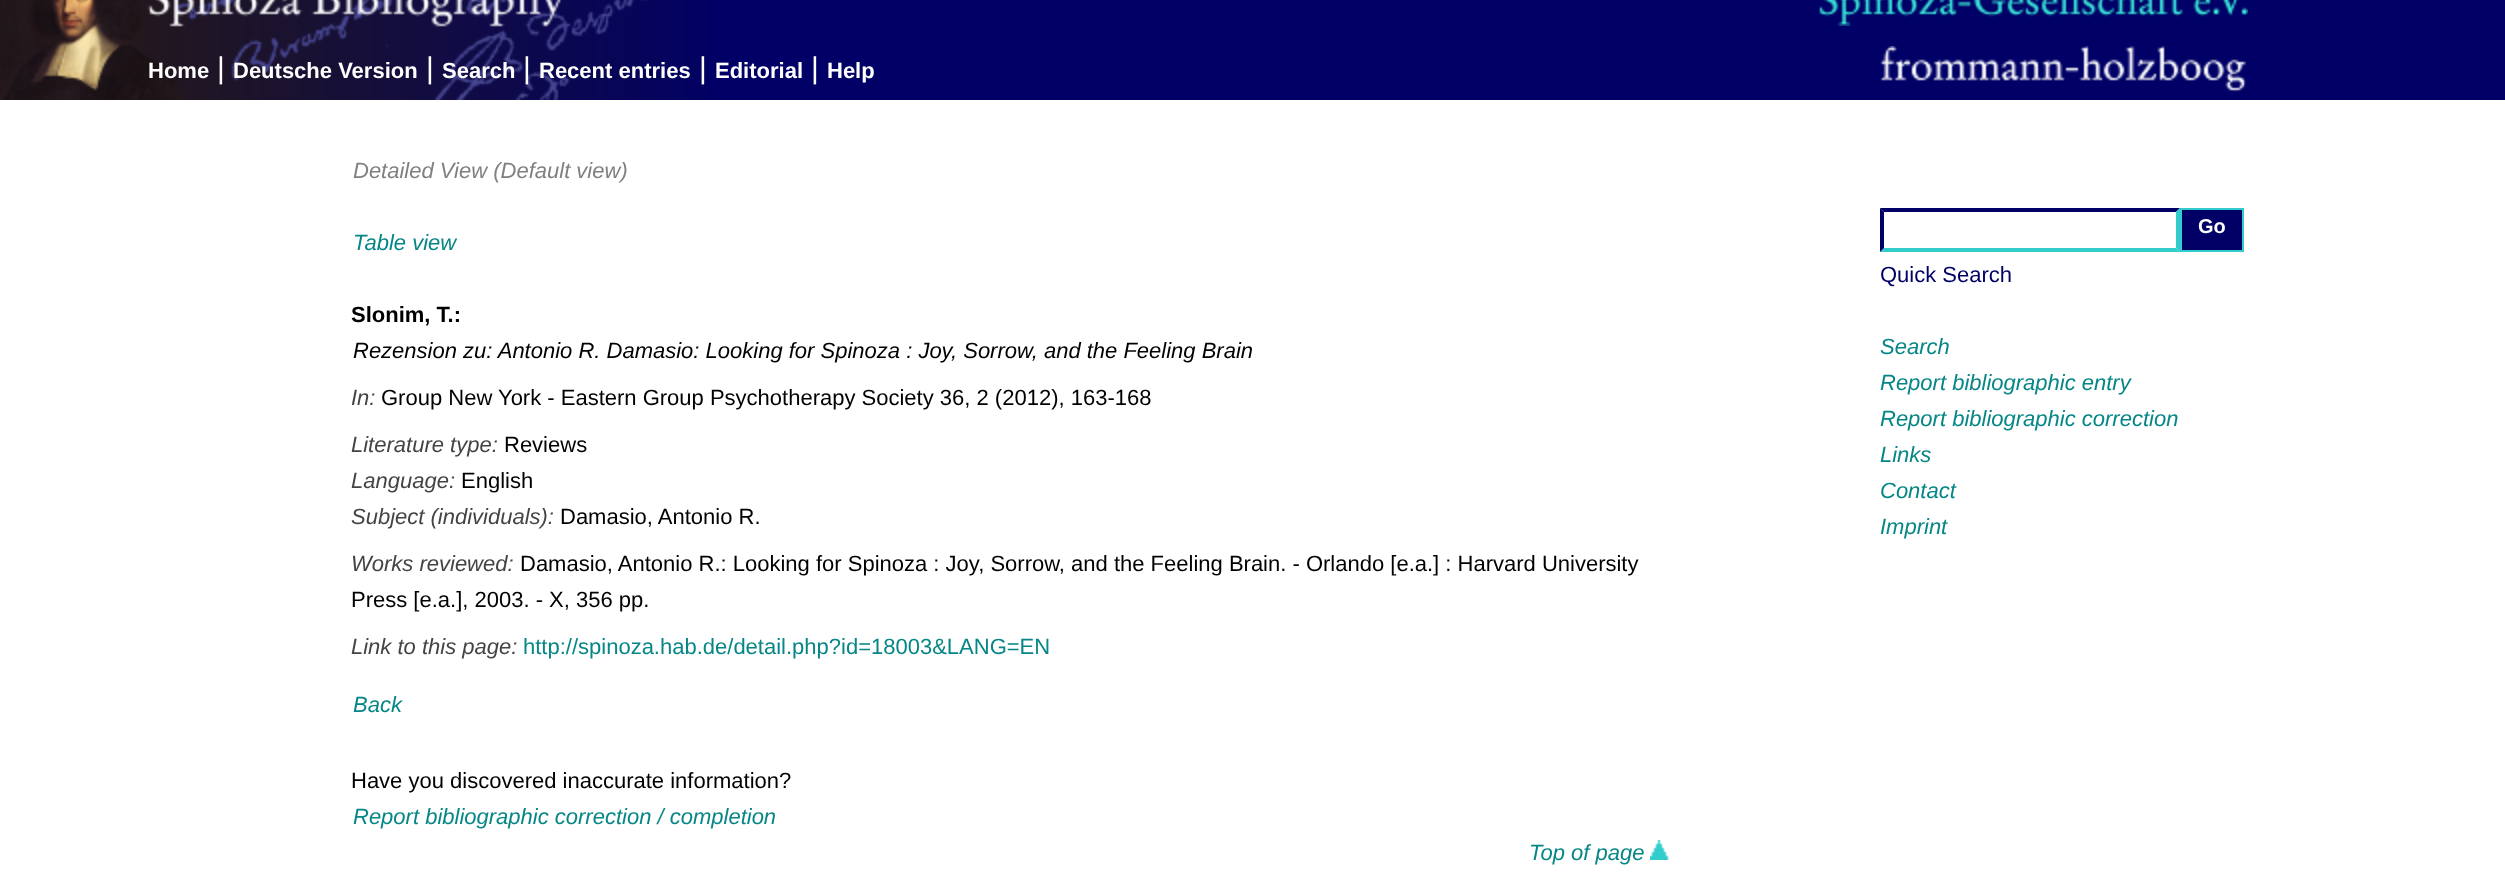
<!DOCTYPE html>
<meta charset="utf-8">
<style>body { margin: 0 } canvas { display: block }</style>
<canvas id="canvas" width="2505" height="894"></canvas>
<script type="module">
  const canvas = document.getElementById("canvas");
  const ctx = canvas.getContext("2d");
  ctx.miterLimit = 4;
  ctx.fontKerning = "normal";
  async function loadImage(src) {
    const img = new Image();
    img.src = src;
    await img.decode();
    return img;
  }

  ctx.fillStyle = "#ffffff";
  ctx.fillRect(0, 0, 2505, 894);
  ctx.fillStyle = "#000066";
  ctx.fillRect(707, 0, 1798, 100);
  ctx.drawImage(await loadImage("img1.png"), 0, 0, 707, 100);
  ctx.drawImage(await loadImage("img2.png"), 1819, 0, 429, 26);
  ctx.font = "bold 22px Liberation Sans";
  ctx.fillStyle = "#ffffff";
  ctx.fillText("Home", 148, 78);
  ctx.font = "30px Liberation Sans";
  ctx.fillText("|", 217, 78);
  ctx.font = "bold 22px Liberation Sans";
  ctx.fillText("Deutsche Version", 233, 78);
  ctx.font = "30px Liberation Sans";
  ctx.fillText("|", 426, 78);
  ctx.font = "bold 22px Liberation Sans";
  ctx.fillText("Search", 442, 78);
  ctx.font = "30px Liberation Sans";
  ctx.fillText("|", 523, 78);
  ctx.font = "bold 22px Liberation Sans";
  ctx.fillText("Recent entries", 539, 78);
  ctx.font = "30px Liberation Sans";
  ctx.fillText("|", 699, 78);
  ctx.font = "bold 22px Liberation Sans";
  ctx.fillText("Editorial", 715, 78);
  ctx.font = "30px Liberation Sans";
  ctx.fillText("|", 811, 78);
  ctx.font = "bold 22px Liberation Sans";
  ctx.fillText("Help", 827, 78);
  ctx.drawImage(await loadImage("img3.png"), 1880, 46, 366, 46);
  ctx.font = "italic 22px Liberation Sans";
  ctx.fillStyle = "#808080";
  ctx.fillText("Detailed View (Default view)", 353, 178);
  ctx.fillStyle = "#068686";
  ctx.fillText("Table view", 353, 250);
  ctx.font = "bold 22px Liberation Sans";
  ctx.fillStyle = "#000000";
  ctx.fillText("Slonim, T.:", 351, 322);
  ctx.font = "italic 22px Liberation Sans";
  ctx.fillText("Rezension zu: Antonio R. Damasio: Looking for Spinoza : Joy, Sorrow, and the Feeling Brain", 353, 358);
  ctx.fillStyle = "#444444";
  ctx.fillText("In:", 351, 405);
  ctx.font = "22px Liberation Sans";
  ctx.fillStyle = "#000000";
  ctx.fillText("Group New York - Eastern Group Psychotherapy Society 36, 2 (2012), 163-168", 381, 405);
  ctx.font = "italic 22px Liberation Sans";
  ctx.fillStyle = "#444444";
  ctx.fillText("Literature type:", 351, 452);
  ctx.font = "22px Liberation Sans";
  ctx.fillStyle = "#000000";
  ctx.fillText("Reviews", 504, 452);
  ctx.font = "italic 22px Liberation Sans";
  ctx.fillStyle = "#444444";
  ctx.fillText("Language:", 351, 488);
  ctx.font = "22px Liberation Sans";
  ctx.fillStyle = "#000000";
  ctx.fillText("English", 461, 488);
  ctx.font = "italic 22px Liberation Sans";
  ctx.fillStyle = "#444444";
  ctx.fillText("Subject (individuals):", 351, 524);
  ctx.font = "22px Liberation Sans";
  ctx.fillStyle = "#000000";
  ctx.fillText("Damasio, Antonio R.", 560, 524);
  ctx.font = "italic 22px Liberation Sans";
  ctx.fillStyle = "#444444";
  ctx.fillText("Works reviewed:", 351, 571);
  ctx.font = "22px Liberation Sans";
  ctx.fillStyle = "#000000";
  ctx.fillText("Damasio, Antonio R.: Looking for Spinoza : Joy, Sorrow, and the Feeling Brain. - Orlando [e.a.] : Harvard University", 520, 571);
  ctx.fillText("Press [e.a.], 2003. - X, 356 pp.", 351, 607);
  ctx.font = "italic 22px Liberation Sans";
  ctx.fillStyle = "#444444";
  ctx.fillText("Link to this page:", 351, 654);
  ctx.font = "22px Liberation Sans";
  ctx.fillStyle = "#068686";
  ctx.fillText("http://spinoza.hab.de/detail.php?id=18003&LANG=EN", 523, 654);
  ctx.font = "italic 22px Liberation Sans";
  ctx.fillText("Back", 353, 712);
  ctx.font = "22px Liberation Sans";
  ctx.fillStyle = "#000000";
  ctx.fillText("Have you discovered inaccurate information?", 351, 788);
  ctx.font = "italic 22px Liberation Sans";
  ctx.fillStyle = "#068686";
  ctx.fillText("Report bibliographic correction / completion", 353, 824);
  ctx.fillText("Top of page", 1529, 860);
  ctx.drawImage(await loadImage("img4.png"), 1650, 840, 19, 20);
  ctx.fillStyle = "#000066";
  ctx.beginPath();
  ctx.moveTo(1880, 208);
  ctx.lineTo(2180, 208);
  ctx.lineTo(2176, 212);
  ctx.lineTo(1884, 212);
  ctx.closePath();
  ctx.fill();
  ctx.fillStyle = "#33cccc";
  ctx.beginPath();
  ctx.moveTo(2180, 208);
  ctx.lineTo(2180, 252);
  ctx.lineTo(2176, 248);
  ctx.lineTo(2176, 212);
  ctx.closePath();
  ctx.fill();
  ctx.beginPath();
  ctx.moveTo(2180, 252);
  ctx.lineTo(1880, 252);
  ctx.lineTo(1884, 248);
  ctx.lineTo(2176, 248);
  ctx.closePath();
  ctx.fill();
  ctx.fillStyle = "#000066";
  ctx.beginPath();
  ctx.moveTo(1880, 252);
  ctx.lineTo(1880, 208);
  ctx.lineTo(1884, 212);
  ctx.lineTo(1884, 248);
  ctx.closePath();
  ctx.fill();
  ctx.beginPath();
  ctx.rect(2181, 209, 62, 42);
  ctx.fill();
  ctx.strokeStyle = "#33cccc";
  ctx.lineWidth = 2;
  ctx.stroke();
  ctx.font = "bold 20px Liberation Sans";
  ctx.fillStyle = "#ffffff";
  ctx.fillText("Go", 2198, 233);
  ctx.font = "22px Liberation Sans";
  ctx.fillStyle = "#000066";
  ctx.fillText("Quick Search", 1880, 282);
  ctx.font = "italic 22px Liberation Sans";
  ctx.fillStyle = "#068686";
  ctx.fillText("Search", 1880, 354);
  ctx.fillText("Report bibliographic entry", 1880, 390);
  ctx.fillText("Report bibliographic correction", 1880, 426);
  ctx.fillText("Links", 1880, 462);
  ctx.fillText("Contact", 1880, 498);
  ctx.fillText("Imprint", 1880, 534);
</script>
